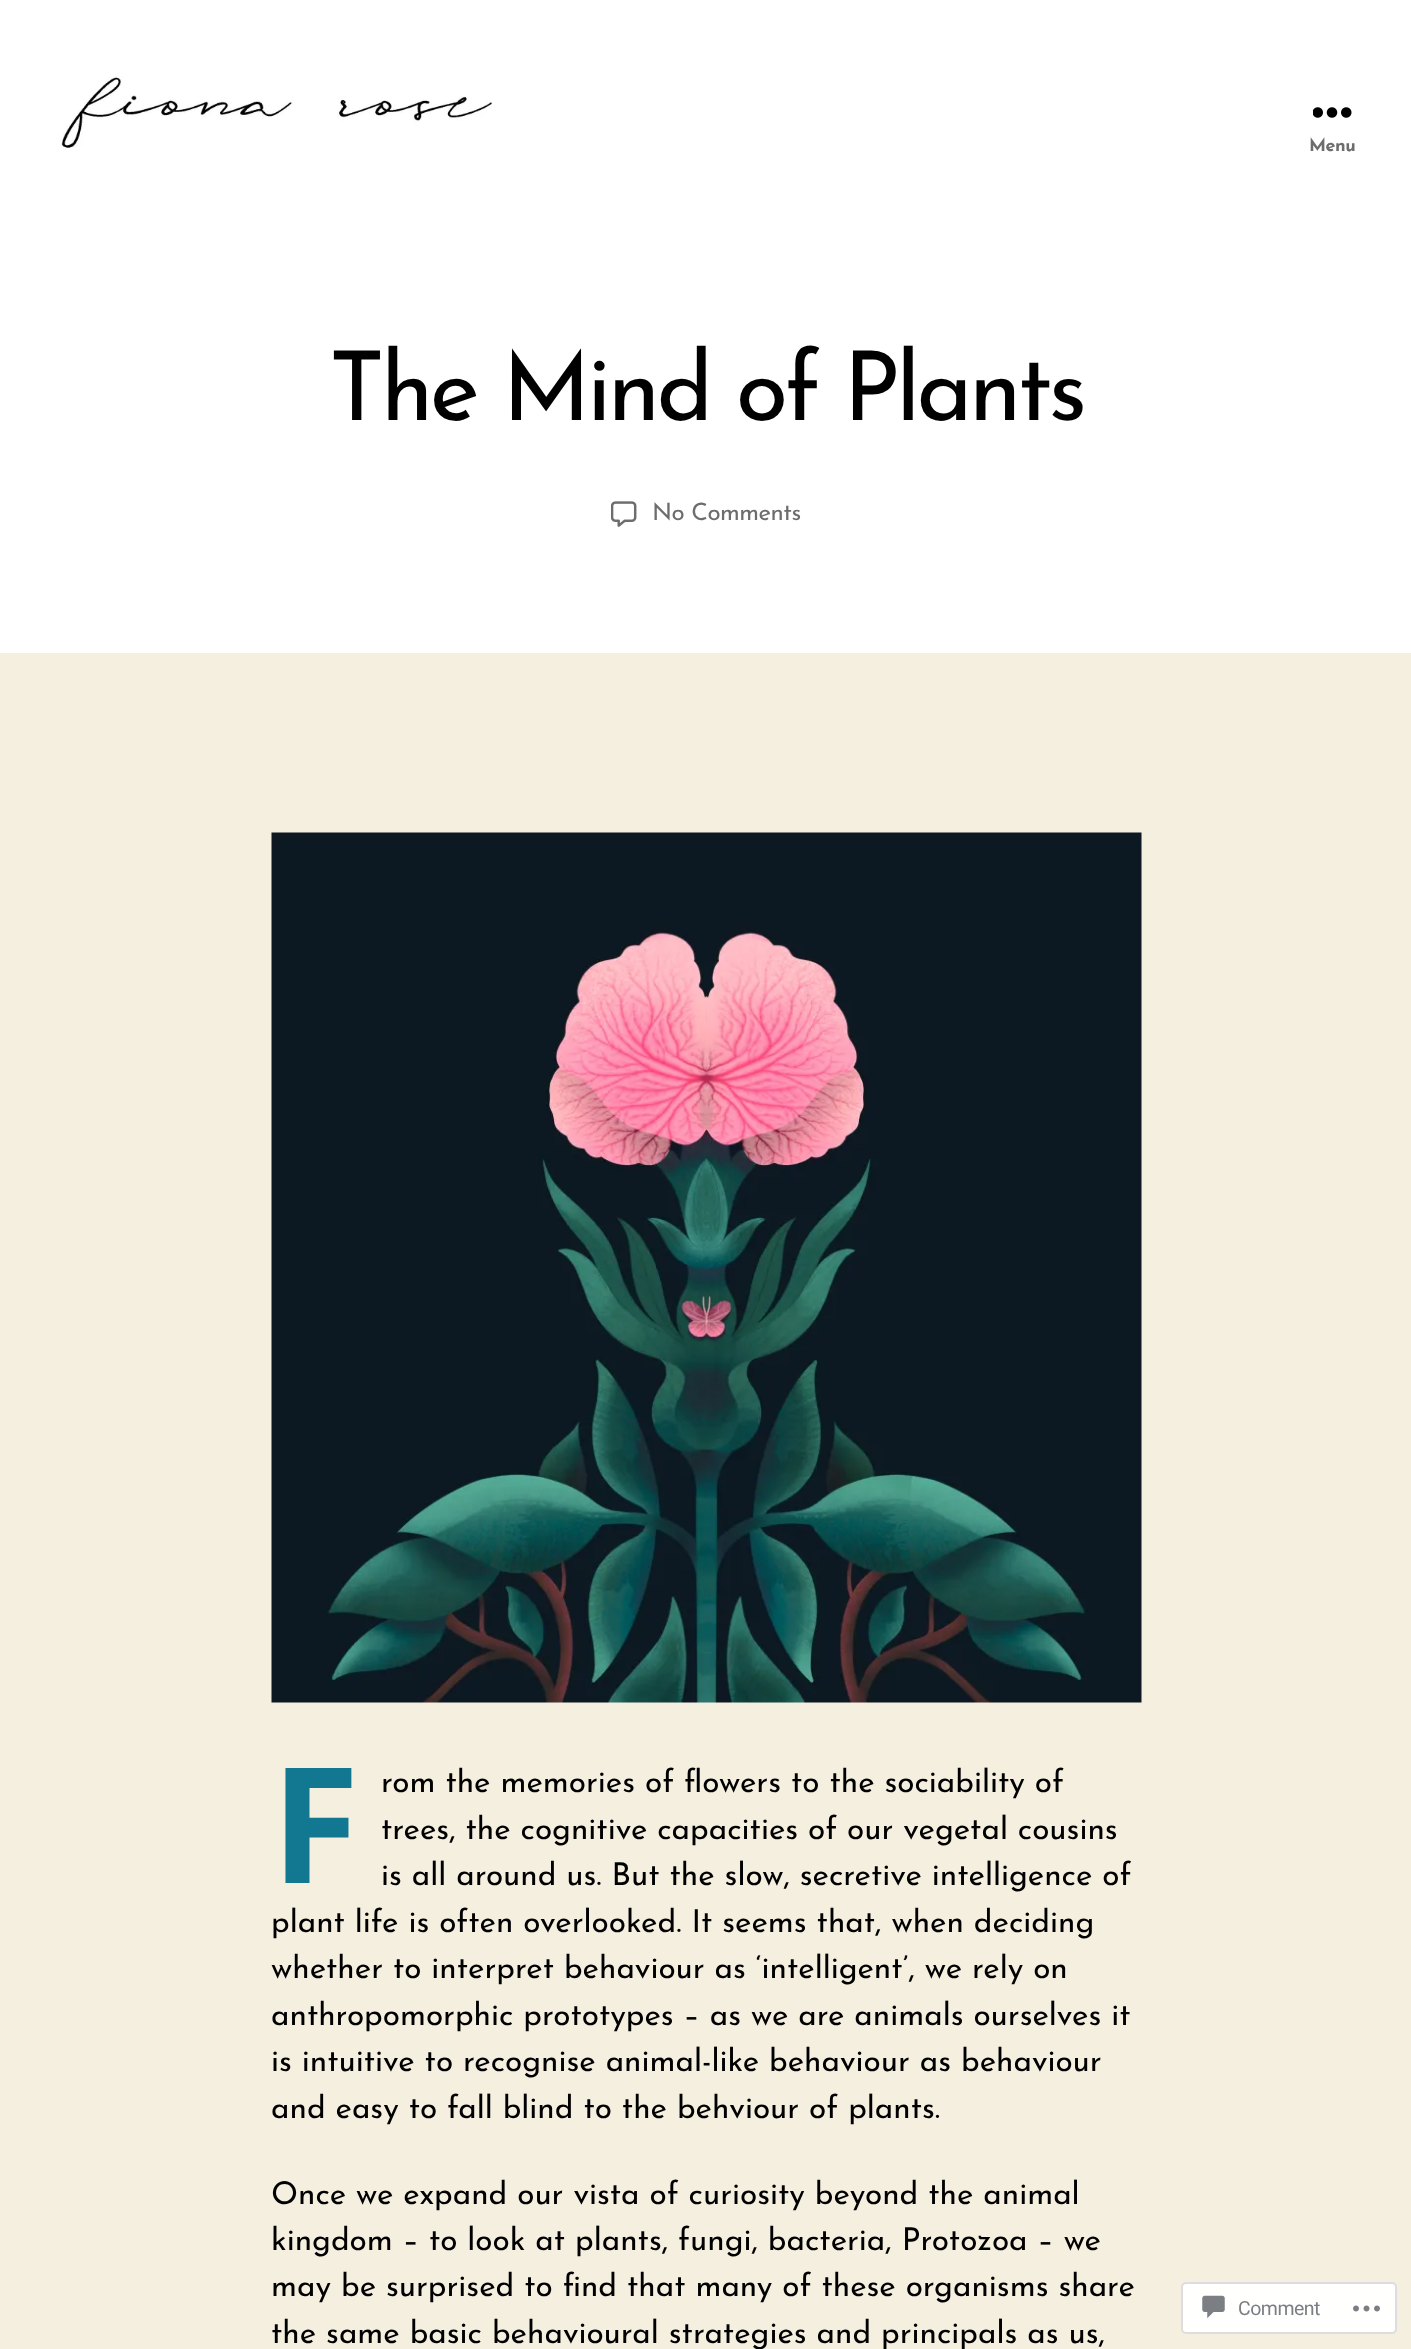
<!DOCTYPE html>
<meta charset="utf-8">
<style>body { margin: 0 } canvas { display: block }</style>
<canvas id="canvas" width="1411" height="2349"></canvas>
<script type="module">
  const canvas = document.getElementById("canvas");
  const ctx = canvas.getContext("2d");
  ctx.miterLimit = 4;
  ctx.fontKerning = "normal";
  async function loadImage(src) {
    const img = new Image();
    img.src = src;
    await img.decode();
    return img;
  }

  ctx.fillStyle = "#f5efe0";
  ctx.fillRect(0, 0, 1411, 2349);
  ctx.fillStyle = "#ffffff";
  ctx.fillRect(0, 0, 1411, 653);
  ctx.drawImage(await loadImage("img1.png"), 60, 76, 432, 72);
  ctx.drawImage(await loadImage("img2.png"), 1313, 107, 39, 11);
  ctx.letterSpacing = "-0.5px";
  ctx.font = "bold 18px Josefin Sans";
  ctx.fillStyle = "#6d6d6d";
  ctx.fillText("Menu", 1309, 151);
  ctx.letterSpacing = "-4px";
  ctx.font = "96px Josefin Sans";
  ctx.fillStyle = "#000000";
  ctx.fillText("The Mind of Plants", 329, 420);
  ctx.drawImage(await loadImage("img3.png"), 611, 501, 26, 26);
  ctx.letterSpacing = "-0.5px";
  ctx.font = "24px Josefin Sans";
  ctx.fillStyle = "#6d6d6d";
  ctx.fillText("No Comments", 652, 520);
  ctx.drawImage(await loadImage("img4.png"), 271, 832, 871, 871);
  ctx.letterSpacing = "0px";
  ctx.font = "bold 161px Noto Sans";
  ctx.fillStyle = "#127790";
  ctx.fillText("F", 271, 1883);
  ctx.font = "31.5px Josefin Sans";
  ctx.fillStyle = "#000000";
  ctx.fillText("rom the memories of flowers to the sociability of", 381, 1792);
  ctx.fillText("trees, the cognitive capacities of our vegetal cousins", 381, 1839);
  ctx.fillText("is all around us. But the slow, secretive intelligence of", 381, 1885);
  ctx.fillText("plant life is often overlooked. It seems that, when deciding", 271, 1932);
  ctx.fillText("whether to interpret behaviour as ‘intelligent’, we rely on", 271, 1978);
  ctx.fillText("anthropomorphic prototypes – as we are animals ourselves it", 271, 2025);
  ctx.fillText("is intuitive to recognise animal-like behaviour as behaviour", 271, 2071);
  ctx.fillText("and easy to fall blind to the behviour of plants.", 271, 2118);
  ctx.fillText("Once we expand our vista of curiosity beyond the animal", 271, 2204);
  ctx.fillText("kingdom – to look at plants, fungi, bacteria, Protozoa – we", 271, 2250);
  ctx.fillText("may be surprised to find that many of these organisms share", 271, 2296);
  ctx.fillText("the same basic behavioural strategies and principals as us,", 271, 2343);
  ctx.fillStyle = "#fffffe";
  ctx.beginPath();
  ctx.roundRect(1182, 2283, 214, 50, 4);
  ctx.fill();
  ctx.strokeStyle = "#dddcde";
  ctx.lineWidth = 2;
  ctx.stroke();
  ctx.drawImage(await loadImage("img5.png"), 1202, 2295, 23, 24);
  ctx.letterSpacing = "-0.5px";
  ctx.font = "19.5px Roboto";
  ctx.fillStyle = "#7b7e84";
  ctx.fillText("Comment", 1238, 2315);
  ctx.drawImage(await loadImage("img6.png"), 1353, 2305, 27, 7);
</script>
